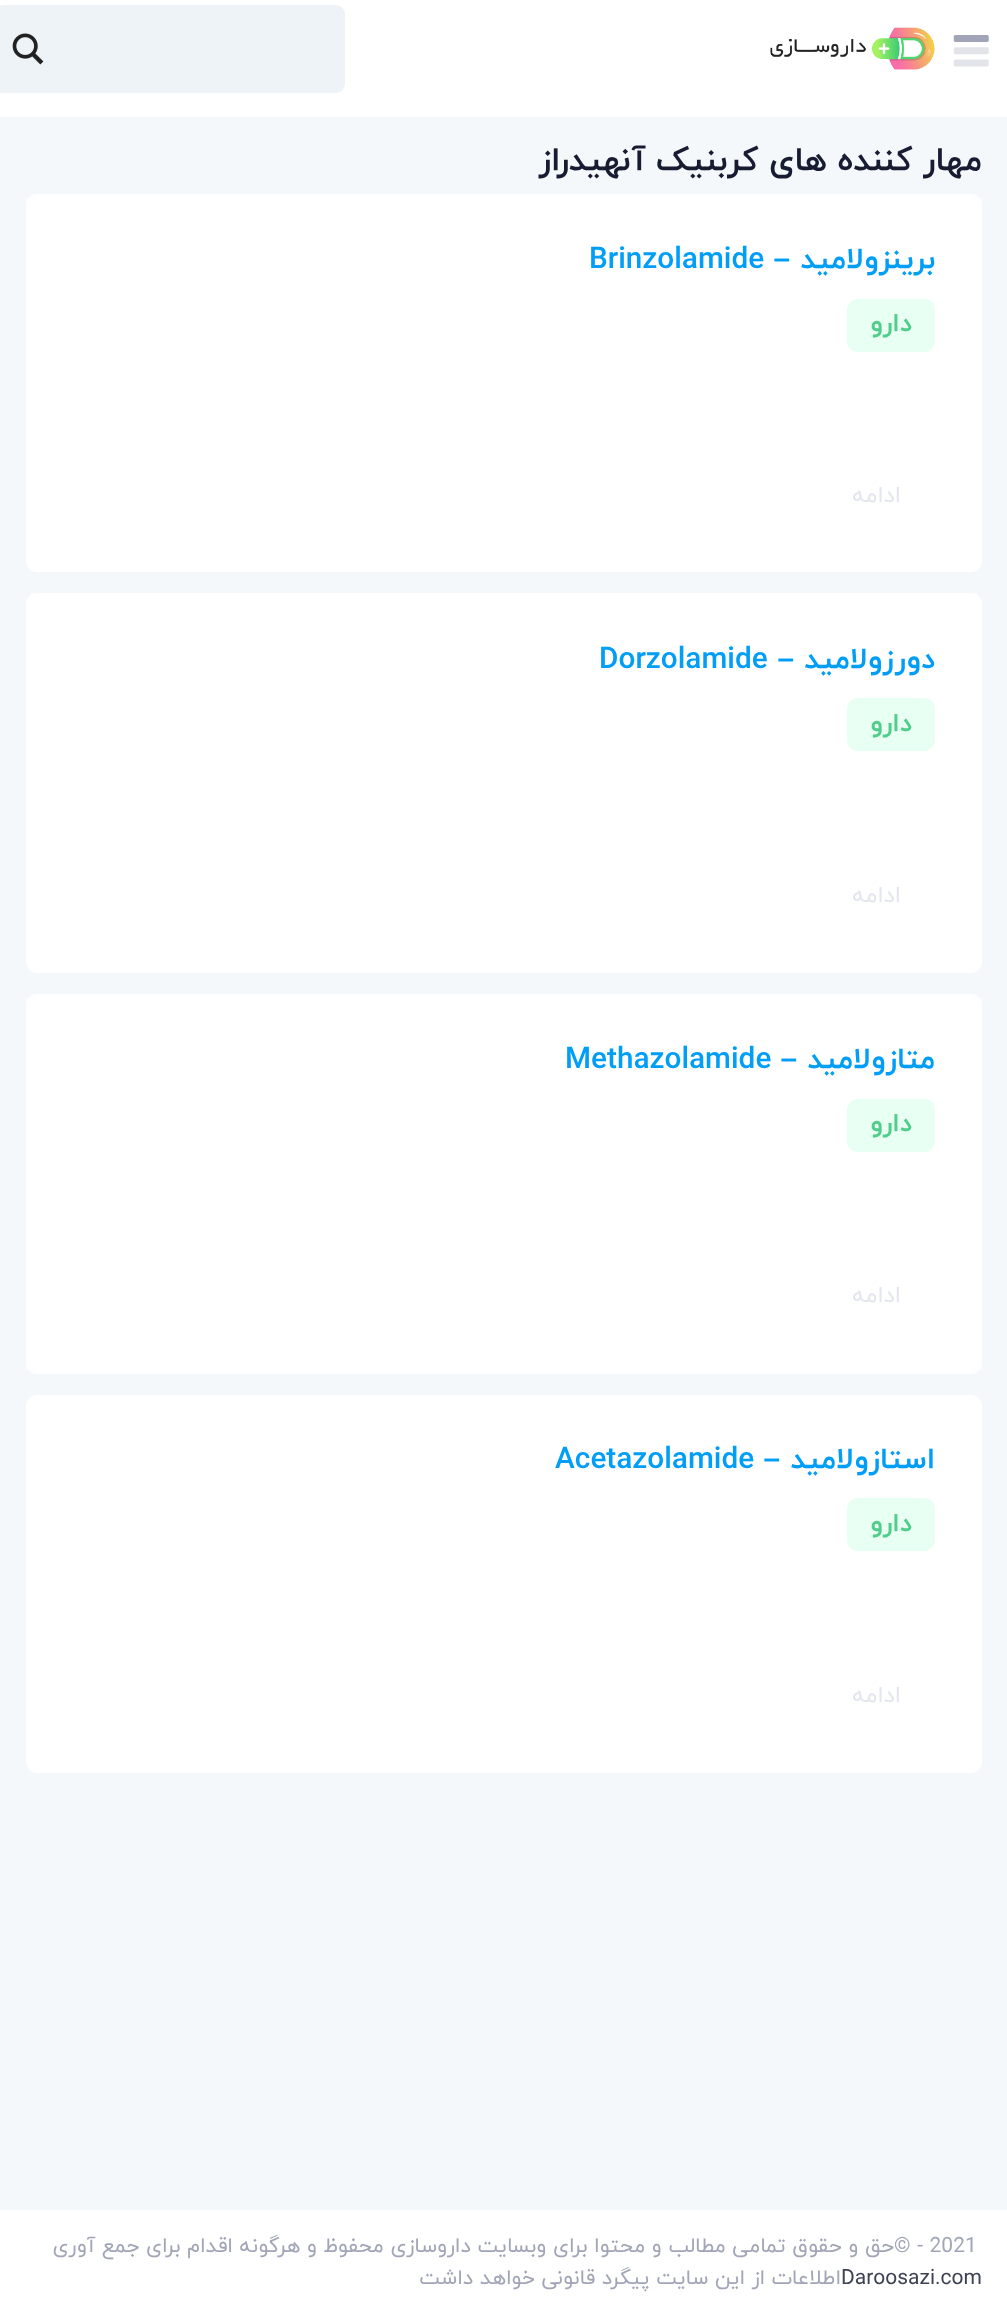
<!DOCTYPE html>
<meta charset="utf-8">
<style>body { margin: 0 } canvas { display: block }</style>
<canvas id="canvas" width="1007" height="2315"></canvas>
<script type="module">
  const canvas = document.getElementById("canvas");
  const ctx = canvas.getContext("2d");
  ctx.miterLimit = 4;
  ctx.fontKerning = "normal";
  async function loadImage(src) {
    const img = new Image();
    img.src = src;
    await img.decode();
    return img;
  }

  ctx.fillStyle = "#f5f8fa";
  ctx.fillRect(0, 0, 1007, 2315);
  ctx.fillStyle = "#ffffff";
  ctx.fillRect(0, 0, 1007, 117);
  ctx.drawImage(await loadImage("img1.png"), 953, 35, 36, 32);
  ctx.drawImage(await loadImage("img2.png"), 770, 27, 165, 43);
  ctx.fillStyle = "#eef3f7";
  ctx.beginPath();
  ctx.roundRect(-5, 5, 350, 88, 9);
  ctx.fill();
  ctx.beginPath();
  ctx.moveTo(4, 5);
  ctx.lineTo(100, 5);
  ctx.lineTo(100, 93);
  ctx.lineTo(4, 93);
  ctx.bezierCurveTo(-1, 93, -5, 89, -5, 84);
  ctx.lineTo(-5, 14);
  ctx.bezierCurveTo(-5, 9, -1, 5, 4, 5);
  ctx.closePath();
  ctx.fill();
  ctx.drawImage(await loadImage("img3.png"), 12, 33, 32, 32);
  ctx.direction = "rtl";
  ctx.font = "bold 33.4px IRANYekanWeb";
  ctx.fillStyle = "#181c32";
  ctx.fillText("مهار کننده های کربنیک آنهیدراز", 982, 170);
  ctx.fillStyle = "#ffffff";
  ctx.beginPath();
  ctx.roundRect(26, 194, 956, 378, 11);
  ctx.fill();
  ctx.font = "bold 29.75px IRANYekanWeb";
  ctx.fillStyle = "#009ef7";
  ctx.fillText("برینزولامید", 935, 268);
  ctx.font = "bold 29.75px Liberation Sans";
  ctx.fillText("–", 790, 268);
  ctx.direction = "ltr";
  ctx.font = "bold 29.75px IRANYekanWeb";
  ctx.fillText("Brinzolamide", 589, 268);
  ctx.fillStyle = "#e8fff3";
  ctx.beginPath();
  ctx.roundRect(847, 299, 88, 53, 11);
  ctx.fill();
  ctx.direction = "rtl";
  ctx.font = "bold 26px IRANYekanWeb";
  ctx.fillStyle = "#50cd89";
  ctx.fillText("دارو", 912, 331);
  ctx.font = "23px IRANYekanWeb";
  ctx.fillStyle = "#e4e6ef";
  ctx.fillText("ادامه", 901, 502);
  ctx.fillStyle = "#ffffff";
  ctx.beginPath();
  ctx.roundRect(26, 593, 956, 380, 11);
  ctx.fill();
  ctx.font = "bold 29.75px IRANYekanWeb";
  ctx.fillStyle = "#009ef7";
  ctx.fillText("دورزولامید", 935, 668);
  ctx.font = "bold 29.75px Liberation Sans";
  ctx.fillText("–", 794, 668);
  ctx.direction = "ltr";
  ctx.font = "bold 29.75px IRANYekanWeb";
  ctx.fillText("Dorzolamide", 599, 668);
  ctx.fillStyle = "#e8fff3";
  ctx.beginPath();
  ctx.roundRect(847, 698, 88, 53, 11);
  ctx.fill();
  ctx.direction = "rtl";
  ctx.font = "bold 26px IRANYekanWeb";
  ctx.fillStyle = "#50cd89";
  ctx.fillText("دارو", 912, 731);
  ctx.font = "23px IRANYekanWeb";
  ctx.fillStyle = "#e4e6ef";
  ctx.fillText("ادامه", 901, 902);
  ctx.fillStyle = "#ffffff";
  ctx.beginPath();
  ctx.roundRect(26, 994, 956, 380, 11);
  ctx.fill();
  ctx.font = "bold 29.75px IRANYekanWeb";
  ctx.fillStyle = "#009ef7";
  ctx.fillText("متازولامید", 935, 1068);
  ctx.font = "bold 29.75px Liberation Sans";
  ctx.fillText("–", 797, 1068);
  ctx.direction = "ltr";
  ctx.font = "bold 29.75px IRANYekanWeb";
  ctx.fillText("Methazolamide", 565, 1068);
  ctx.fillStyle = "#e8fff3";
  ctx.beginPath();
  ctx.roundRect(847, 1099, 88, 53, 11);
  ctx.fill();
  ctx.direction = "rtl";
  ctx.font = "bold 26px IRANYekanWeb";
  ctx.fillStyle = "#50cd89";
  ctx.fillText("دارو", 912, 1131);
  ctx.font = "23px IRANYekanWeb";
  ctx.fillStyle = "#e4e6ef";
  ctx.fillText("ادامه", 901, 1302);
  ctx.fillStyle = "#ffffff";
  ctx.beginPath();
  ctx.roundRect(26, 1395, 956, 378, 11);
  ctx.fill();
  ctx.font = "bold 29.75px IRANYekanWeb";
  ctx.fillStyle = "#009ef7";
  ctx.fillText("استازولامید", 935, 1468);
  ctx.font = "bold 29.75px Liberation Sans";
  ctx.fillText("–", 780, 1468);
  ctx.direction = "ltr";
  ctx.font = "bold 29.75px IRANYekanWeb";
  ctx.fillText("Acetazolamide", 555, 1468);
  ctx.fillStyle = "#e8fff3";
  ctx.beginPath();
  ctx.roundRect(847, 1498, 88, 53, 11);
  ctx.fill();
  ctx.direction = "rtl";
  ctx.font = "bold 26px IRANYekanWeb";
  ctx.fillStyle = "#50cd89";
  ctx.fillText("دارو", 912, 1531);
  ctx.font = "23px IRANYekanWeb";
  ctx.fillStyle = "#e4e6ef";
  ctx.fillText("ادامه", 901, 1702);
  ctx.fillStyle = "#ffffff";
  ctx.fillRect(0, 2210, 1007, 105);
  ctx.direction = "ltr";
  ctx.font = "21px IRANYekanWeb";
  ctx.fillStyle = "#a1a5b7";
  ctx.fillText("© - 2021", 894, 2252);
  ctx.direction = "rtl";
  ctx.fillText("حق و حقوق تمامی مطالب و محتوا برای وبسایت داروسازی محفوظ و هرگونه اقدام برای جمع آوری", 894, 2252);
  ctx.direction = "ltr";
  ctx.fillStyle = "#3f4254";
  ctx.fillText("Daroosazi.com", 841, 2284);
  ctx.direction = "rtl";
  ctx.fillStyle = "#a1a5b7";
  ctx.fillText("اطلاعات از این سایت پیگرد قانونی خواهد داشت", 841, 2284);
</script>
